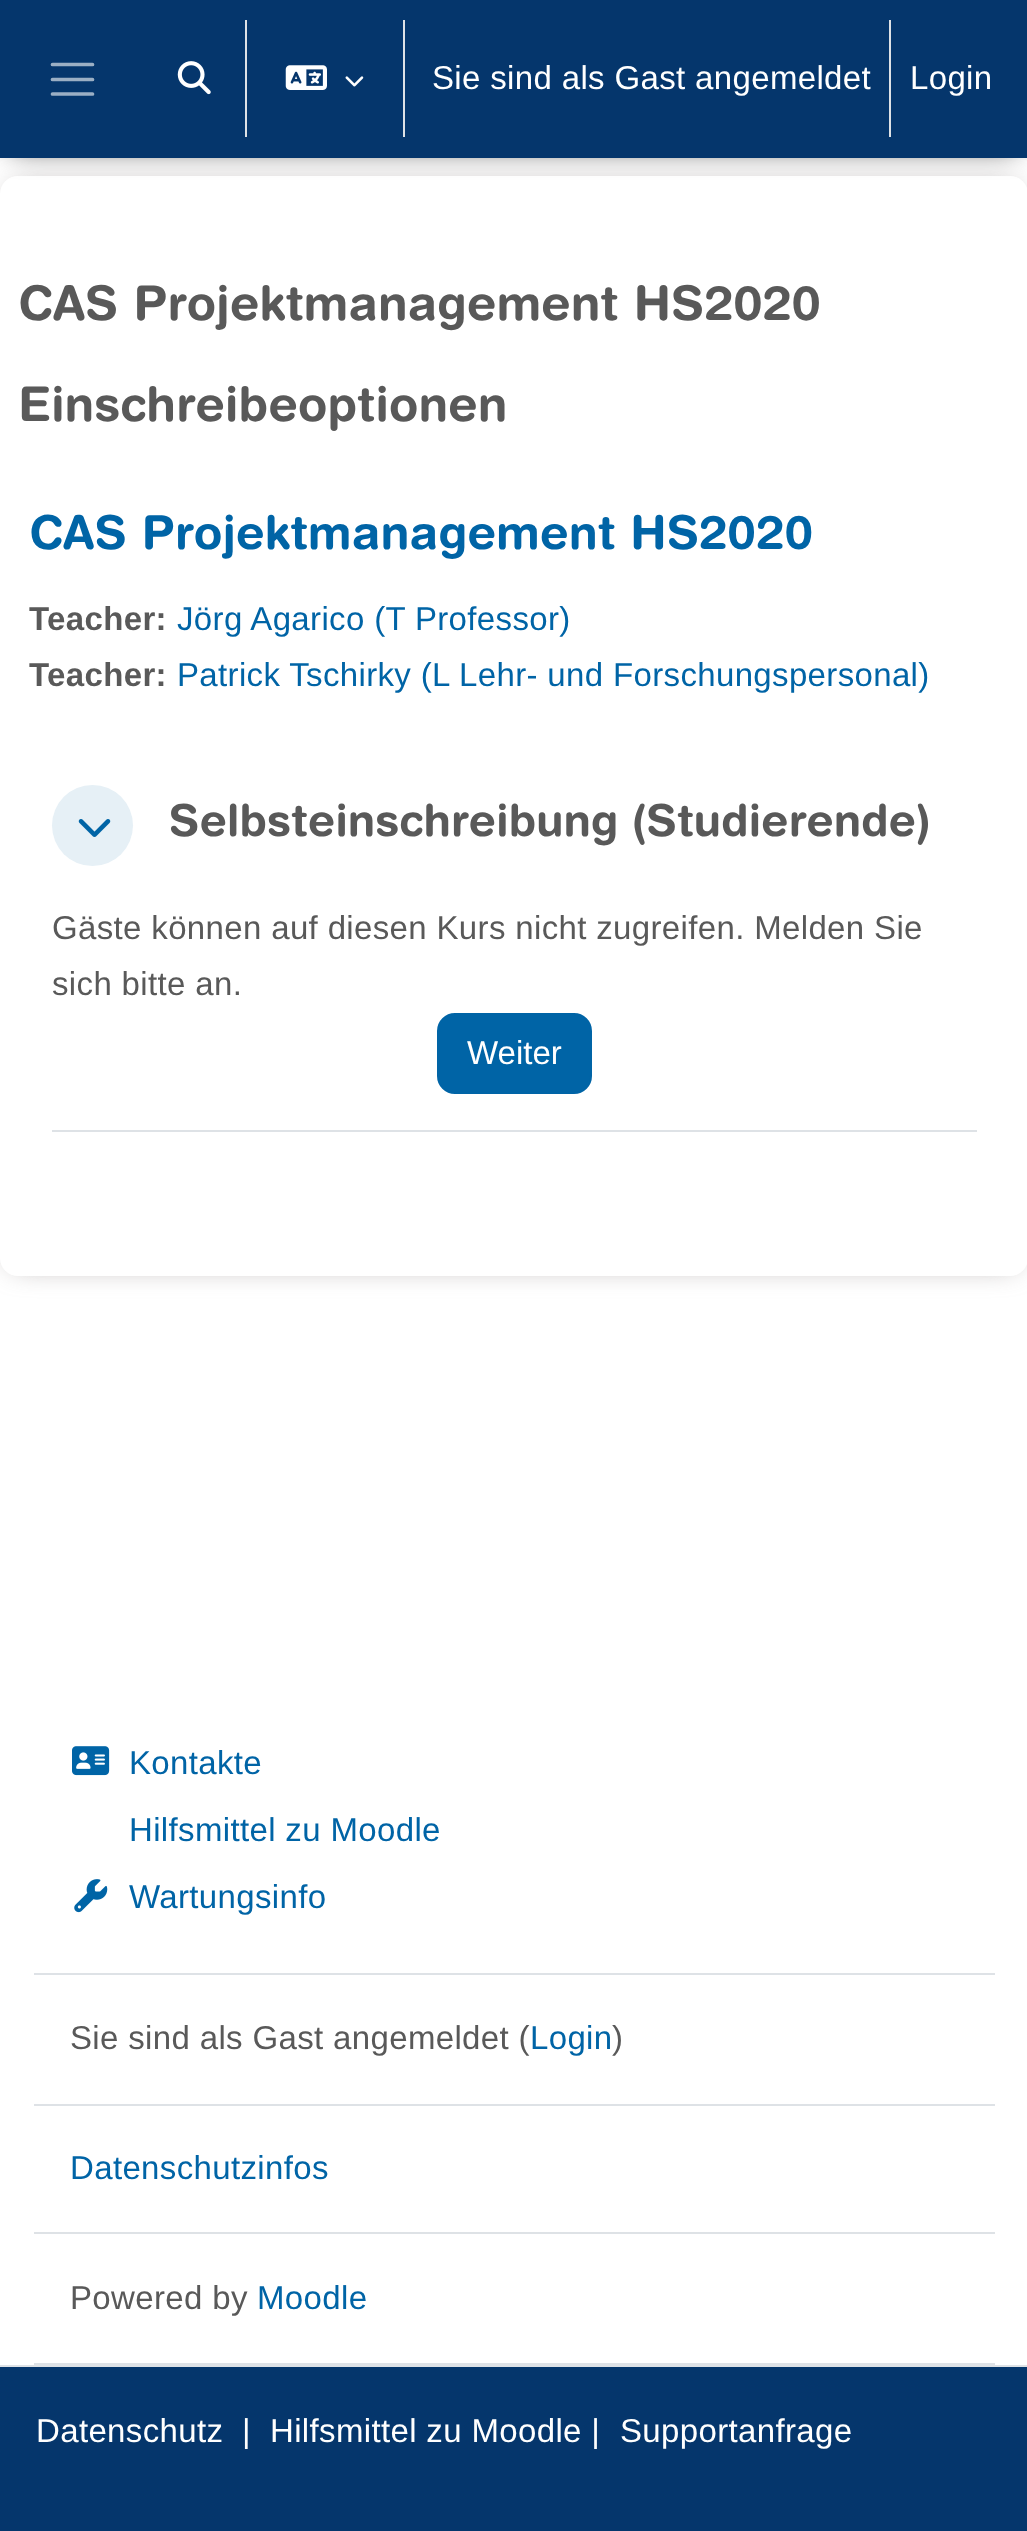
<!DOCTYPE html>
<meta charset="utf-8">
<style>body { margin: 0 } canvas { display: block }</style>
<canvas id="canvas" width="1027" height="2531"></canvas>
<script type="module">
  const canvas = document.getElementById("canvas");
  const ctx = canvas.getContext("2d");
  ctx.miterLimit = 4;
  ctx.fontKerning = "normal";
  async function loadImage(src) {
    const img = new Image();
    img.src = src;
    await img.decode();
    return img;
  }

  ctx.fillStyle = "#ffffff";
  ctx.fillRect(0, 0, 1027, 2531);
  ctx.fillStyle = "rgba(132, 124, 124, 0.72)";
  ctx.filter = "blur(14.5px)";
  ctx.beginPath();
  ctx.roundRect(11, 187, 1006, 1078, 7);
  ctx.fill();
  ctx.filter = "none";
  ctx.fillStyle = "#ffffff";
  ctx.beginPath();
  ctx.roundRect(0, 176, 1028, 1100, 18);
  ctx.fill();
  ctx.fillStyle = "#000000";
  ctx.filter = "blur(14.5px)";
  ctx.beginPath();
  ctx.rect(11, 11, 1006, 135);
  ctx.fill();
  ctx.filter = "none";
  ctx.fillStyle = "#05366c";
  ctx.fillRect(0, 0, 1027, 158);
  ctx.beginPath();
  ctx.moveTo(52.5, 64.5);
  ctx.lineTo(92.5, 64.5);
  ctx.moveTo(52.5, 79.5);
  ctx.lineTo(92.5, 79.5);
  ctx.moveTo(52.5, 94);
  ctx.lineTo(92.5, 94);
  ctx.strokeStyle = "#9bafc4";
  ctx.lineWidth = 3.7;
  ctx.lineCap = "round";
  ctx.stroke();
  ctx.drawImage(await loadImage("img1.png"), 177, 61, 34, 34);
  ctx.fillStyle = "#dee2e6";
  ctx.fillRect(245, 20, 2, 117);
  ctx.drawImage(await loadImage("img2.png"), 285, 65, 42, 25);
  ctx.drawImage(await loadImage("img3.png"), 345, 76, 19, 11);
  ctx.fillRect(403, 20, 2, 117);
  ctx.letterSpacing = "0.35px";
  ctx.font = "33px Liberation Sans";
  ctx.fillStyle = "#ffffff";
  ctx.fillText("Sie sind als Gast angemeldet", 432, 89);
  ctx.fillStyle = "#dee2e6";
  ctx.fillRect(889, 20, 2, 117);
  ctx.fillStyle = "#ffffff";
  ctx.fillText("Login", 910, 89);
  ctx.font = "bold 47.9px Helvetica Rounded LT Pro";
  ctx.fillStyle = "#595959";
  ctx.fillText("CAS Projektmanagement HS2020", 18, 320);
  ctx.fillText("Einschreibeoptionen", 18, 421);
  ctx.font = "bold 46.75px Helvetica Rounded LT Pro";
  ctx.fillStyle = "#0064a6";
  ctx.fillText("CAS Projektmanagement HS2020", 29, 549);
  ctx.font = "bold 33px Liberation Sans";
  ctx.fillStyle = "#595959";
  ctx.fillText("Teacher:", 29, 630);
  ctx.font = "33px Liberation Sans";
  ctx.fillStyle = "#0064a6";
  ctx.fillText("Jörg Agarico (T Professor)", 177, 630);
  ctx.font = "bold 33px Liberation Sans";
  ctx.fillStyle = "#595959";
  ctx.fillText("Teacher:", 29, 686);
  ctx.font = "33px Liberation Sans";
  ctx.fillStyle = "#0064a6";
  ctx.fillText("Patrick Tschirky (L Lehr- und Forschungspersonal)", 177, 686);
  ctx.fillStyle = "#dee2e6";
  ctx.fillRect(52, 1130, 925, 2);
  ctx.fillStyle = "#e6f0f6";
  ctx.beginPath();
  ctx.arc(92.5, 825.5, 40.5, 0, Math.PI * 2);
  ctx.fill();
  ctx.drawImage(await loadImage("img4.png"), 78, 819, 33, 18);
  ctx.wordSpacing = "-1px";
  ctx.font = "bold 44.25px Helvetica Rounded LT Pro";
  ctx.fillStyle = "#595959";
  ctx.fillText("Selbsteinschreibung (Studierende)", 169, 836);
  ctx.wordSpacing = "0px";
  ctx.font = "33px Liberation Sans";
  ctx.fillText("Gäste können auf diesen Kurs nicht zugreifen. Melden Sie", 52, 939);
  ctx.fillText("sich bitte an.", 52, 995);
  ctx.fillStyle = "#0064a6";
  ctx.beginPath();
  ctx.roundRect(438, 1014, 153, 79, 17);
  ctx.fill();
  ctx.strokeStyle = "#0064a6";
  ctx.lineWidth = 2;
  ctx.stroke();
  ctx.letterSpacing = "0px";
  ctx.fillStyle = "#ffffff";
  ctx.fillText("Weiter", 467, 1064);
  ctx.fillStyle = "#dee2e6";
  ctx.fillRect(34, 1973, 961, 2);
  ctx.drawImage(await loadImage("img5.png"), 72, 1746, 38, 30);
  ctx.letterSpacing = "0.35px";
  ctx.fillStyle = "#0064a6";
  ctx.fillText("Kontakte", 129, 1774);
  ctx.fillText("Hilfsmittel zu Moodle", 129, 1841);
  ctx.drawImage(await loadImage("img6.png"), 74, 1879, 34, 34);
  ctx.fillText("Wartungsinfo", 129, 1908);
  ctx.fillStyle = "#dee2e6";
  ctx.fillRect(34, 2104, 961, 2);
  ctx.fillStyle = "#595959";
  ctx.fillText("Sie sind als Gast angemeldet (", 70, 2049);
  ctx.fillStyle = "#0064a6";
  ctx.fillText("Login", 530, 2049);
  ctx.fillStyle = "#595959";
  ctx.fillText(")", 612, 2049);
  ctx.fillStyle = "#dee2e6";
  ctx.fillRect(34, 2232, 961, 2);
  ctx.fillStyle = "#0064a6";
  ctx.fillText("Datenschutzinfos", 70, 2179);
  ctx.fillStyle = "#dee2e6";
  ctx.fillRect(34, 2363, 961, 2);
  ctx.fillStyle = "#595959";
  ctx.fillText("Powered by", 70, 2309);
  ctx.fillStyle = "#0064a6";
  ctx.fillText("Moodle", 257, 2309);
  ctx.fillStyle = "#05366c";
  ctx.fillRect(0, 2367, 1027, 164);
  ctx.fillStyle = "#dee2e6";
  ctx.fillRect(0, 2365, 1027, 2);
  ctx.fillStyle = "#ffffff";
  ctx.fillText("Datenschutz", 36, 2442);
  ctx.fillText("|", 242, 2442);
  ctx.fillText("Hilfsmittel zu Moodle |", 270, 2442);
  ctx.fillText("Supportanfrage", 620, 2442);
</script>
